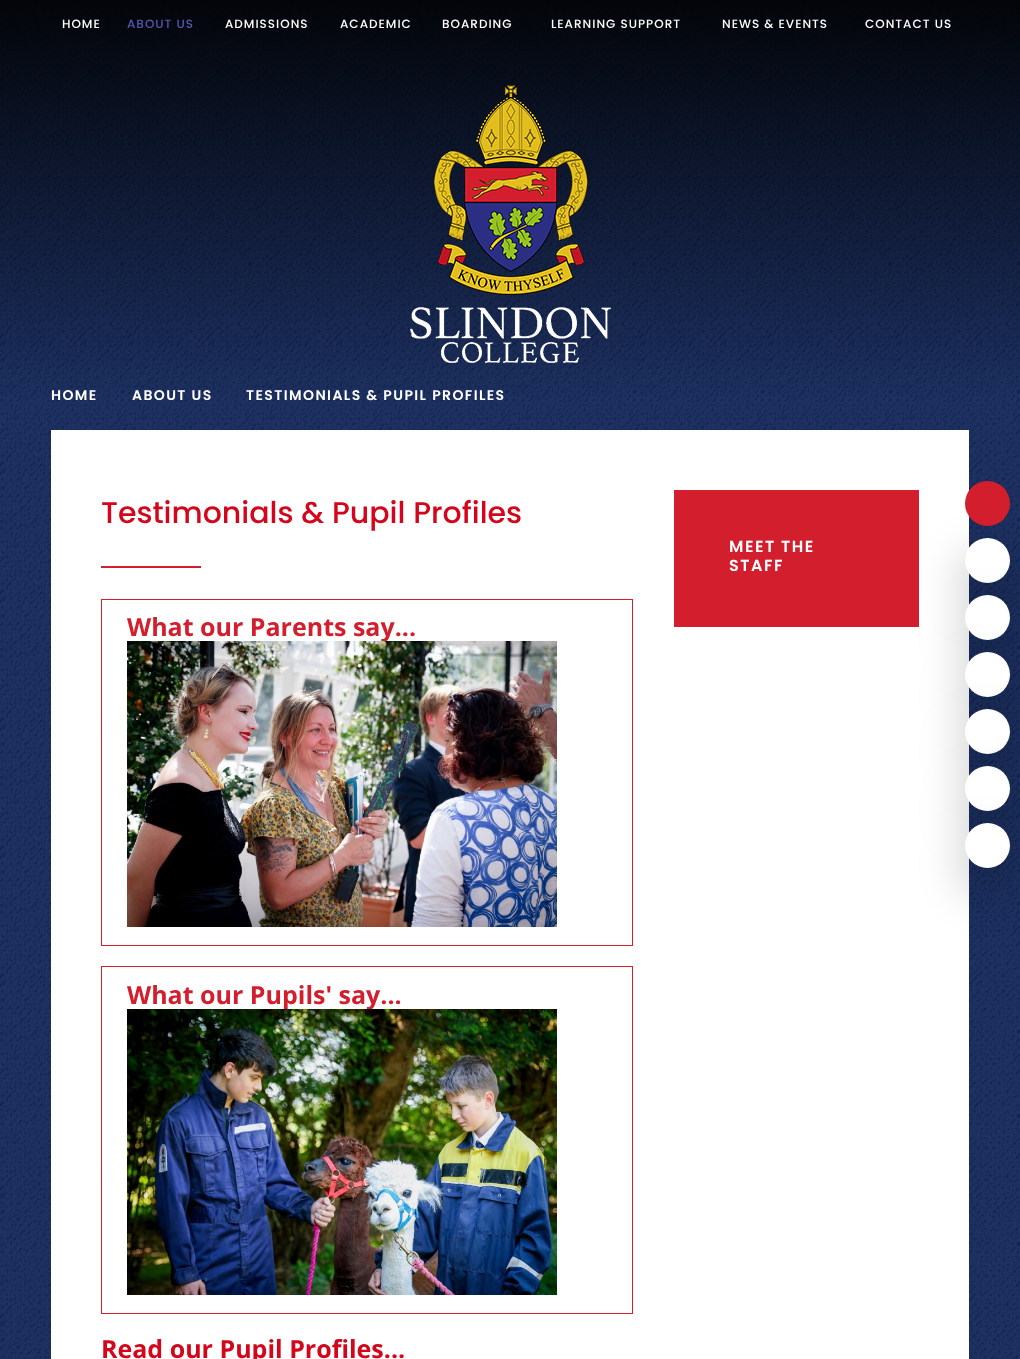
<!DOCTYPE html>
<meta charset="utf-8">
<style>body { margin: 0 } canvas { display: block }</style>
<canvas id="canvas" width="1020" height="1359"></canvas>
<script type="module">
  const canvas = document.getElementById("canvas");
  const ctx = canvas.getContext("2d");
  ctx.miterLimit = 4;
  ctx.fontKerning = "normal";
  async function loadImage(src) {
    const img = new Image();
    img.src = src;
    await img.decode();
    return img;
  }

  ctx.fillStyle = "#ffffff";
  ctx.fillRect(0, 0, 1020, 1359);
  ctx.drawImage(await loadImage("img1.png"), 0, 0, 1020, 1359);
  ctx.letterSpacing = "1px";
  ctx.font = "500 12px Poppins";
  ctx.fillText("HOME", 62, 28);
  ctx.fillStyle = "#5659b0";
  ctx.fillText("ABOUT US", 127, 28);
  ctx.fillStyle = "#ffffff";
  ctx.fillText("ADMISSIONS", 225, 28);
  ctx.fillText("ACADEMIC", 340, 28);
  ctx.fillText("BOARDING", 442, 28);
  ctx.fillText("LEARNING SUPPORT", 551, 28);
  ctx.fillText("NEWS & EVENTS", 722, 28);
  ctx.fillText("CONTACT US", 865, 28);
  ctx.fillRect(51, 430, 918, 929);
  ctx.fillStyle = "#d31e2d";
  ctx.fillRect(674, 490, 245, 137);
  ctx.fillStyle = "rgba(0, 0, 0, 0.15)";
  ctx.filter = "blur(20px)";
  ctx.beginPath();
  ctx.roundRect(955, 548, 65, 65, 32.5);
  ctx.fill();
  ctx.filter = "none";
  ctx.fillStyle = "#d31e2d";
  ctx.beginPath();
  ctx.arc(987.5, 503.5, 22.5, 0, Math.PI * 2);
  ctx.fill();
  ctx.fillStyle = "#ffffff";
  ctx.beginPath();
  ctx.arc(987.5, 560.5, 22.5, 0, Math.PI * 2);
  ctx.fill();
  ctx.fillStyle = "rgba(0, 0, 0, 0.15)";
  ctx.filter = "blur(20px)";
  ctx.beginPath();
  ctx.roundRect(955, 605, 65, 65, 32.5);
  ctx.fill();
  ctx.filter = "none";
  ctx.fillStyle = "#ffffff";
  ctx.beginPath();
  ctx.arc(987.5, 617.5, 22.5, 0, Math.PI * 2);
  ctx.fill();
  ctx.fillStyle = "rgba(0, 0, 0, 0.15)";
  ctx.filter = "blur(20px)";
  ctx.beginPath();
  ctx.roundRect(955, 662, 65, 65, 32.5);
  ctx.fill();
  ctx.filter = "none";
  ctx.fillStyle = "#ffffff";
  ctx.beginPath();
  ctx.arc(987.5, 674.5, 22.5, 0, Math.PI * 2);
  ctx.fill();
  ctx.fillStyle = "rgba(0, 0, 0, 0.15)";
  ctx.filter = "blur(20px)";
  ctx.beginPath();
  ctx.roundRect(955, 719, 65, 65, 32.5);
  ctx.fill();
  ctx.filter = "none";
  ctx.fillStyle = "#ffffff";
  ctx.beginPath();
  ctx.arc(987.5, 731.5, 22.5, 0, Math.PI * 2);
  ctx.fill();
  ctx.fillStyle = "rgba(0, 0, 0, 0.15)";
  ctx.filter = "blur(20px)";
  ctx.beginPath();
  ctx.roundRect(955, 776, 65, 65, 32.5);
  ctx.fill();
  ctx.filter = "none";
  ctx.fillStyle = "#ffffff";
  ctx.beginPath();
  ctx.arc(987.5, 788.5, 22.5, 0, Math.PI * 2);
  ctx.fill();
  ctx.fillStyle = "rgba(0, 0, 0, 0.15)";
  ctx.filter = "blur(20px)";
  ctx.beginPath();
  ctx.roundRect(955, 833, 65, 65, 32.5);
  ctx.fill();
  ctx.filter = "none";
  ctx.fillStyle = "#ffffff";
  ctx.beginPath();
  ctx.arc(987.5, 845.5, 22.5, 0, Math.PI * 2);
  ctx.fill();
  ctx.drawImage(await loadImage("img2.png"), 410, 85, 201, 278);
  ctx.letterSpacing = "1.4px";
  ctx.font = "600 14px Poppins";
  ctx.fillText("HOME", 51, 400);
  ctx.fillText("ABOUT US", 132, 400);
  ctx.fillText("TESTIMONIALS & PUPIL PROFILES", 246, 400);
  ctx.letterSpacing = "0px";
  ctx.font = "500 30px Poppins";
  ctx.fillStyle = "#d4061b";
  ctx.fillText("Testimonials & Pupil Profiles", 101, 523);
  ctx.fillStyle = "#d31e2d";
  ctx.fillRect(101, 566, 100, 2);
  ctx.strokeStyle = "#d31e2d";
  ctx.strokeRect(101.5, 599.5, 531, 346);
  ctx.font = "bold 25px Open Sans";
  ctx.fillText("What our Parents say...", 127, 636);
  ctx.drawImage(await loadImage("img3.png"), 127, 641, 430, 286);
  ctx.strokeRect(101.5, 966.5, 531, 347);
  ctx.fillText("What our Pupils' say...", 127, 1004);
  ctx.drawImage(await loadImage("img4.png"), 127, 1009, 430, 286);
  ctx.fillStyle = "#d4061b";
  ctx.fillText("Read our Pupil Profiles...", 101, 1358);
  ctx.letterSpacing = "1.5px";
  ctx.font = "600 16px Poppins";
  ctx.fillStyle = "#ffffff";
  ctx.fillText("MEET THE", 729, 552);
  ctx.fillText("STAFF", 729, 571);
</script>
